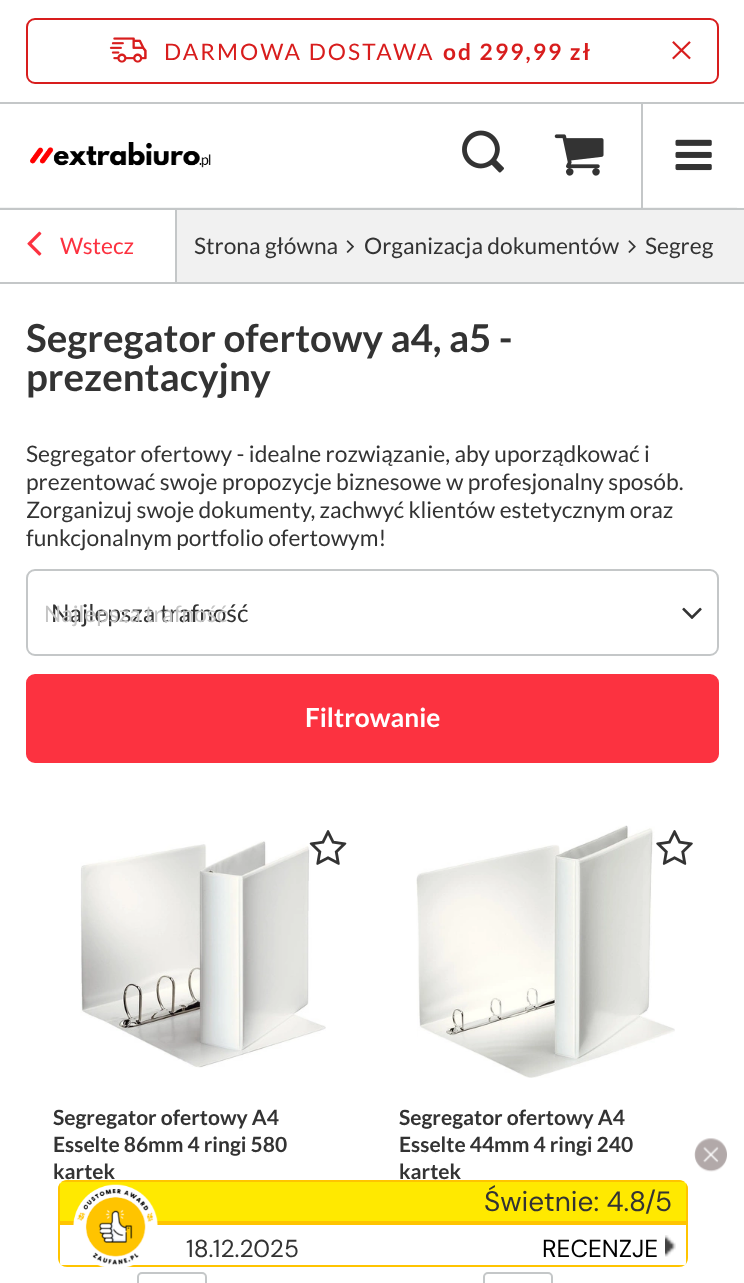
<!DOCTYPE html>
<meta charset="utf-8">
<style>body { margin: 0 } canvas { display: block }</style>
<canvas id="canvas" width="744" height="1283"></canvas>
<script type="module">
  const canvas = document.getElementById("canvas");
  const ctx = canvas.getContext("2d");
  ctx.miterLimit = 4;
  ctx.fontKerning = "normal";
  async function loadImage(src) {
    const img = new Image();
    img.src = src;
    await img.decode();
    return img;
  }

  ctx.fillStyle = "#ffffff";
  ctx.fillRect(0, 0, 744, 1283);
  ctx.fillStyle = "#c4c7c8";
  ctx.fillRect(175, 208, 2, 76);
  ctx.fillRect(0, 208, 744, 2);
  ctx.beginPath();
  ctx.roundRect(27, 19, 691, 64, 8);
  ctx.strokeStyle = "#d81d1d";
  ctx.lineWidth = 2;
  ctx.stroke();
  ctx.drawImage(await loadImage("img1.png"), 109, 37, 38, 26);
  ctx.letterSpacing = "2.1px";
  ctx.font = "22.75px Lato";
  ctx.fillStyle = "#d81d1d";
  ctx.fillText("DARMOWA DOSTAWA", 164, 60);
  ctx.font = "bold 22.75px Lato";
  ctx.fillText("od 299,99 zł", 443, 60);
  ctx.drawImage(await loadImage("img2.png"), 672, 41, 19, 19);
  ctx.fillStyle = "#f3f4f4";
  ctx.fillRect(0, 207, 737, 1);
  ctx.fillStyle = "#c4c7c8";
  ctx.fillRect(641, 102, 2, 106);
  ctx.fillRect(0, 102, 744, 2);
  ctx.drawImage(await loadImage("img3.png"), 30, 142, 181, 26);
  ctx.drawImage(await loadImage("img4.png"), 462, 130, 42, 43);
  ctx.drawImage(await loadImage("img5.png"), 554, 134, 50, 42);
  ctx.drawImage(await loadImage("img6.png"), 675, 139, 37, 32);
  ctx.drawImage(await loadImage("img7.png"), 27, 231, 15, 25);
  ctx.letterSpacing = "0px";
  ctx.font = "22.75px Lato";
  ctx.fillStyle = "#fc3240";
  ctx.fillText("Wstecz", 60, 254);
  ctx.fillStyle = "#f1f1f1";
  ctx.fillRect(177, 210, 567, 72);
  ctx.fillStyle = "#fcfcfc";
  ctx.fillRect(737, 207, 7, 1);
  ctx.fillStyle = "#333333";
  ctx.fillText("Strona główna", 194, 254);
  ctx.drawImage(await loadImage("img8.png"), 346, 240, 8, 13);
  ctx.fillText("Organizacja dokumentów", 364, 254);
  ctx.drawImage(await loadImage("img9.png"), 628, 240, 8, 13);
  ctx.fillText("Segreg", 645, 254);
  ctx.fillStyle = "#c4c7c8";
  ctx.fillRect(0, 282, 744, 2);
  ctx.font = "bold 38.5px Lato";
  ctx.fillStyle = "#333333";
  ctx.fillText("Segregator ofertowy a4, a5 -", 26, 352);
  ctx.fillText("prezentacyjny", 26, 391);
  ctx.font = "22.75px Lato";
  ctx.fillText("Segregator ofertowy - idealne rozwiązanie, aby uporządkować i", 26, 462);
  ctx.fillText("prezentować swoje propozycje biznesowe w profesjonalny sposób.", 26, 490);
  ctx.fillText("Zorganizuj swoje dokumenty, zachwyć klientów estetycznym oraz", 26, 518);
  ctx.fillText("funkcjonalnym portfolio ofertowym!", 26, 546);
  ctx.beginPath();
  ctx.roundRect(27, 570, 691, 85, 8);
  ctx.strokeStyle = "#c4c7c8";
  ctx.stroke();
  ctx.font = "24.5px Lato";
  ctx.fillText("Najlepsza trafność", 51, 622);
  ctx.drawImage(await loadImage("img10.png"), 682, 607, 20, 12);
  ctx.font = "22.75px Lato";
  ctx.fillStyle = "#c5c5c5";
  ctx.fillText("Najlepsza trafność", 44, 622);
  ctx.fillStyle = "#fc3240";
  ctx.beginPath();
  ctx.roundRect(27, 675, 691, 87, 8);
  ctx.fill();
  ctx.strokeStyle = "#fc3240";
  ctx.stroke();
  ctx.font = "bold 26.25px Lato";
  ctx.fillStyle = "#ffffff";
  ctx.fillText("Filtrowanie", 305, 727);
  ctx.drawImage(await loadImage("img11.png"), 80, 840, 246, 228);
  ctx.drawImage(await loadImage("img12.png"), 309, 830, 38, 35);
  ctx.font = "bold 21px Lato";
  ctx.fillStyle = "#333333";
  ctx.fillText("Segregator ofertowy A4", 53, 1125);
  ctx.fillText("Esselte 86mm 4 ringi 580", 53, 1152);
  ctx.fillText("kartek", 53, 1179);
  ctx.beginPath();
  ctx.roundRect(138, 1273, 68, 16, 4);
  ctx.strokeStyle = "#c4c7c8";
  ctx.stroke();
  ctx.drawImage(await loadImage("img13.png"), 416, 825, 259, 253);
  ctx.drawImage(await loadImage("img14.png"), 656, 830, 37, 35);
  ctx.fillText("Segregator ofertowy A4", 399, 1125);
  ctx.fillText("Esselte 44mm 4 ringi 240", 399, 1152);
  ctx.fillText("kartek", 399, 1179);
  ctx.beginPath();
  ctx.roundRect(484, 1273, 68, 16, 4);
  ctx.stroke();
  ctx.drawImage(await loadImage("img15.png"), 694, 1138, 33, 34);
  ctx.fillStyle = "#ffe900";
  ctx.beginPath();
  ctx.roundRect(58, 1180, 630, 87, 9);
  ctx.fill();
  ctx.fillStyle = "#ffc400";
  ctx.beginPath();
  ctx.moveTo(58, 1189);
  ctx.lineTo(58, 1223);
  ctx.lineTo(688, 1223);
  ctx.lineTo(688, 1189);
  ctx.bezierCurveTo(688, 1187, 687, 1185, 686, 1183);
  ctx.lineTo(686, 1221);
  ctx.lineTo(60, 1221);
  ctx.lineTo(60, 1183);
  ctx.bezierCurveTo(59, 1185, 58, 1187, 58, 1189);
  ctx.closePath();
  ctx.moveTo(67, 1180);
  ctx.bezierCurveTo(65, 1180, 63, 1181, 61, 1182);
  ctx.lineTo(685, 1182);
  ctx.bezierCurveTo(683, 1181, 681, 1180, 679, 1180);
  ctx.closePath();
  ctx.fill("evenodd");
  ctx.fillStyle = "#ffffff";
  ctx.beginPath();
  ctx.roundRect(58, 1223, 630, 44, [0, 0, 9, 9]);
  ctx.fill();
  ctx.fillStyle = "#ffc400";
  ctx.beginPath();
  ctx.moveTo(60, 1225);
  ctx.lineTo(686, 1225);
  ctx.lineTo(686, 1264);
  ctx.bezierCurveTo(687, 1262, 688, 1260, 688, 1258);
  ctx.lineTo(688, 1223);
  ctx.lineTo(58, 1223);
  ctx.lineTo(58, 1258);
  ctx.bezierCurveTo(58, 1260, 59, 1262, 60, 1264);
  ctx.closePath();
  ctx.moveTo(679, 1267);
  ctx.bezierCurveTo(681, 1267, 683, 1266, 685, 1265);
  ctx.lineTo(61, 1265);
  ctx.bezierCurveTo(63, 1266, 65, 1267, 67, 1267);
  ctx.closePath();
  ctx.fill("evenodd");
  ctx.drawImage(await loadImage("img16.png"), 73, 1184, 85, 83);
  ctx.font = "28px DM Sans";
  ctx.fillStyle = "#333333";
  ctx.fillText("Świetnie: 4.8", 484, 1211);
  ctx.fillText("/", 645, 1211);
  ctx.fillText("5", 655, 1211);
  ctx.font = "24.5px DM Sans";
  ctx.fillText("18.12.2025", 186, 1257);
  ctx.fillStyle = "#000000";
  ctx.fillText("RECENZJE", 542, 1257);
  ctx.drawImage(await loadImage("img17.png"), 665, 1235, 11, 22);
</script>
